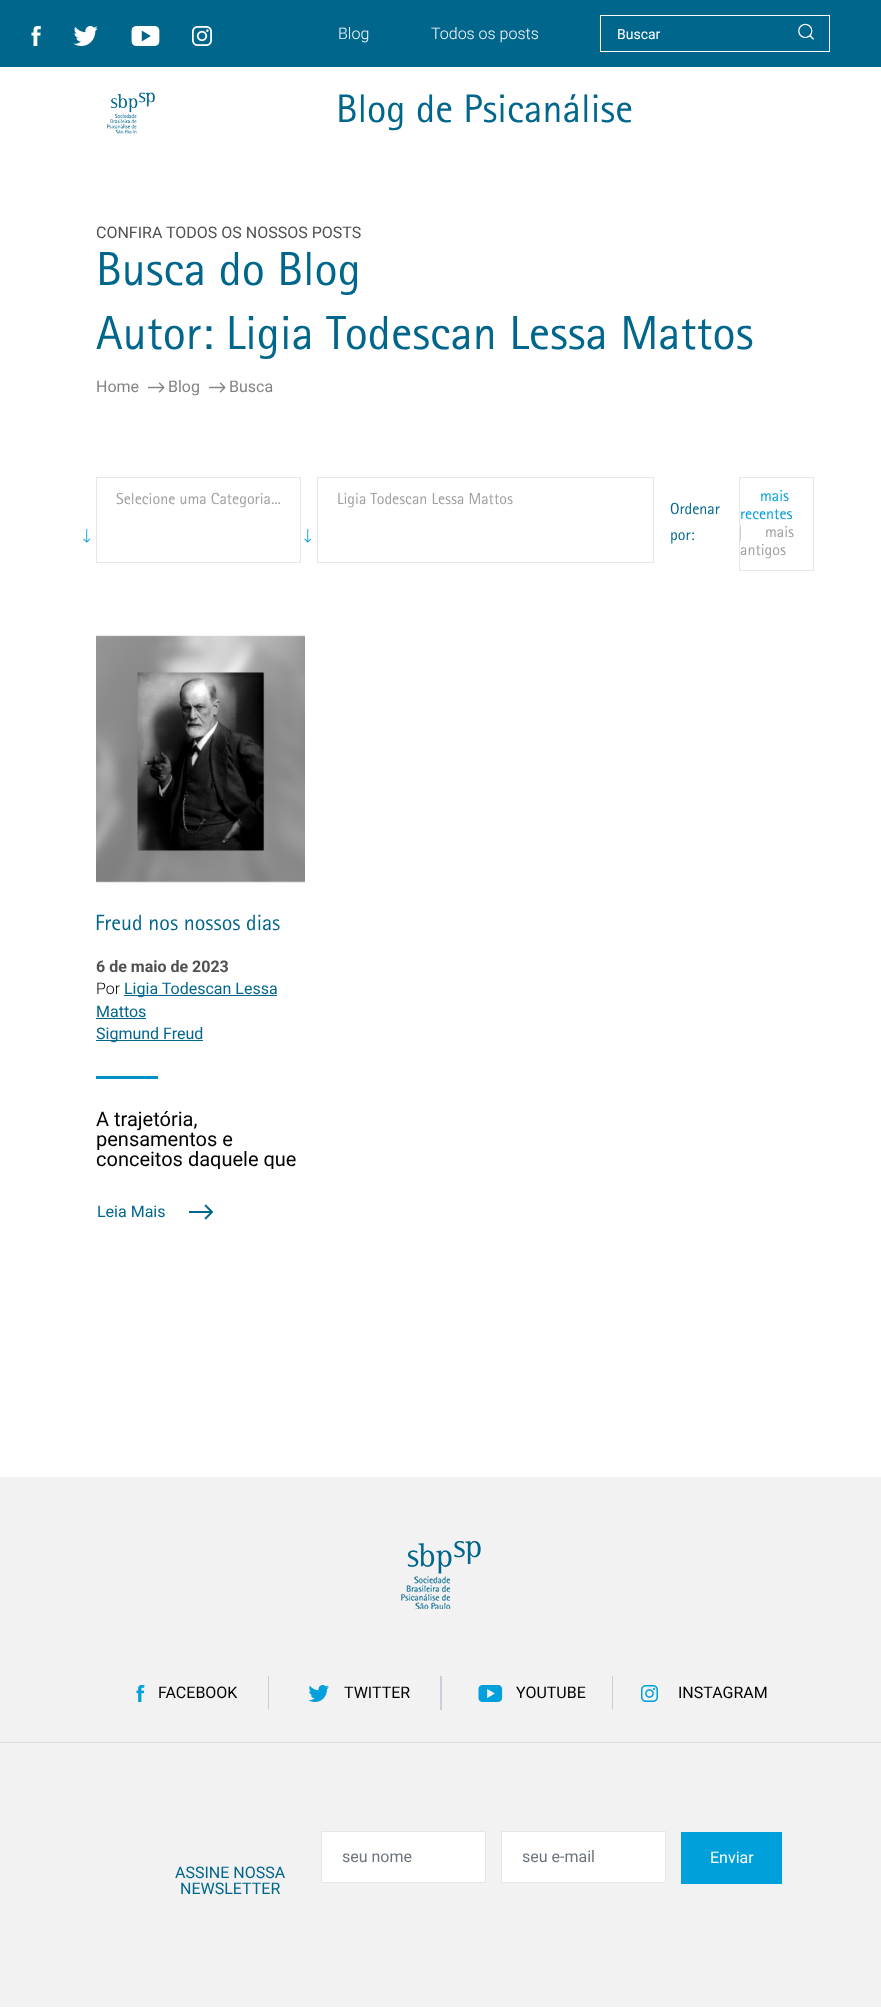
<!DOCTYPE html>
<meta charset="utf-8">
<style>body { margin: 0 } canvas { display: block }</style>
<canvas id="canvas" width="881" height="2013"></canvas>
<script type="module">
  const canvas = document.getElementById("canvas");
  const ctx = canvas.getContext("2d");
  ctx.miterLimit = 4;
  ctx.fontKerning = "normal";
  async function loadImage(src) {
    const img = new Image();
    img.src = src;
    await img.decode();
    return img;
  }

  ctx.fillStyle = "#ffffff";
  ctx.fillRect(0, 0, 881, 2013);
  ctx.fillStyle = "#00668c";
  ctx.fillRect(0, 0, 881, 67);
  ctx.drawImage(await loadImage("img1.png"), 31, 26, 10, 20);
  ctx.drawImage(await loadImage("img2.png"), 73, 26, 25, 20);
  ctx.drawImage(await loadImage("img3.png"), 131, 26, 29, 20);
  ctx.drawImage(await loadImage("img4.png"), 192, 26, 20, 20);
  ctx.font = "300 16px Roboto";
  ctx.fillStyle = "#f8f9fa";
  ctx.fillText("Blog", 338, 39);
  ctx.fillText("Todos os posts", 431, 39);
  ctx.strokeStyle = "#ffffff";
  ctx.strokeRect(600.5, 15.5, 229, 36);
  ctx.font = "14px Roboto";
  ctx.fillStyle = "#ffffff";
  ctx.fillText("Buscar", 617, 39);
  ctx.drawImage(await loadImage("img5.png"), 798, 23, 16, 17);
  ctx.drawImage(await loadImage("img6.png"), 107, 92, 48, 42);
  ctx.font = "40px 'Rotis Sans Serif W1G'";
  ctx.fillStyle = "#00668c";
  ctx.fillText("Blog de Psicanálise", 336, 122);
  ctx.font = "16px Roboto";
  ctx.fillStyle = "#505050";
  ctx.fillText("CONFIRA TODOS OS NOSSOS POSTS", 96, 238);
  ctx.font = "48px 'Rotis Sans Serif W1G'";
  ctx.fillStyle = "#00668c";
  ctx.fillText("Busca do Blog", 96, 285);
  ctx.fillText("Autor: Ligia Todescan Lessa Mattos", 96, 349);
  ctx.font = "16px Roboto";
  ctx.fillStyle = "#838383";
  ctx.fillText("Home", 96, 392);
  ctx.drawImage(await loadImage("img7.png"), 148, 382, 17, 11);
  ctx.fillText("Blog", 168, 392);
  ctx.drawImage(await loadImage("img7.png"), 209, 382, 17, 11);
  ctx.fillText("Busca", 229, 392);
  ctx.strokeStyle = "#e6e6e6";
  ctx.strokeRect(96.5, 477.5, 204, 85);
  ctx.font = "16px 'Rotis Sans Serif W1G'";
  ctx.fillStyle = "#9ea0a1";
  ctx.fillText("Selecione uma Categoria...", 116, 504);
  ctx.drawImage(await loadImage("img8.png"), 83, 529, 8, 14);
  ctx.strokeRect(317.5, 477.5, 336, 85);
  ctx.fillText("Ligia Todescan Lessa Mattos", 337, 504);
  ctx.drawImage(await loadImage("img8.png"), 304, 529, 8, 14);
  ctx.fillStyle = "#00668c";
  ctx.fillText("Ordenar", 670, 514);
  ctx.fillText("por:", 670, 540);
  ctx.strokeRect(739.5, 477.5, 74, 93);
  ctx.fillStyle = "#00a0dc";
  ctx.fillText("mais", 760, 501);
  ctx.fillText("recentes", 740, 519);
  ctx.fillStyle = "#9ea0a1";
  ctx.beginPath();
  ctx.moveTo(740, 525.5);
  ctx.lineTo(740.5, 526);
  ctx.lineTo(740.5, 541.5);
  ctx.lineTo(740, 540.5);
  ctx.closePath();
  ctx.fill();
  ctx.fillText("mais", 765, 537);
  ctx.fillText("antigos", 740, 555);
  ctx.drawImage(await loadImage("img9.png"), 96, 635, 209, 248);
  ctx.font = "22px 'Rotis Sans Serif W1G'";
  ctx.fillStyle = "#00668c";
  ctx.fillText("Freud nos nossos dias", 95, 930);
  ctx.font = "bold 16px Roboto";
  ctx.fillStyle = "#505050";
  ctx.fillText("6 de maio de 2023", 96, 972);
  ctx.font = "300 16px Roboto";
  ctx.fillStyle = "#000000";
  ctx.fillText("Por", 96, 994);
  ctx.fillStyle = "#00668c";
  ctx.fillRect(124, 995, 153, 1);
  ctx.font = "16px Roboto";
  ctx.fillText("Ligia Todescan Lessa", 124, 994);
  ctx.fillText("Mattos", 96, 1017);
  ctx.fillRect(96, 1018, 50, 1);
  ctx.fillRect(96, 1040, 107, 1);
  ctx.fillText("Sigmund Freud", 96, 1039);
  ctx.fillStyle = "#0090c6";
  ctx.fillRect(96, 1076, 62, 3);
  ctx.font = "20px Roboto";
  ctx.fillStyle = "#000000";
  ctx.fillText("A trajetória,", 96, 1126);
  ctx.fillText("pensamentos e", 96, 1146);
  ctx.save();
  ctx.beginPath();
  ctx.rect(96, 1109, 209, 60);
  ctx.clip();
  ctx.fillText("conceitos daquele que", 96, 1166);
  ctx.restore();
  ctx.font = "16px Roboto";
  ctx.fillStyle = "#00668c";
  ctx.fillText("Leia Mais", 97, 1217);
  ctx.drawImage(await loadImage("img10.png"), 189, 1204, 24, 16);
  ctx.fillStyle = "#f2f2f2";
  ctx.fillRect(0, 1477, 881, 530);
  ctx.drawImage(await loadImage("img11.png"), 401, 1541, 80, 68);
  ctx.drawImage(await loadImage("img12.png"), 136, 1685, 9, 17);
  ctx.fillStyle = "#000000";
  ctx.fillText("FACEBOOK", 158, 1698);
  ctx.fillStyle = "#c8cfd8";
  ctx.fillRect(440, 1676, 2, 34);
  ctx.fillRect(268, 1676, 1, 34);
  ctx.drawImage(await loadImage("img13.png"), 308, 1685, 21, 17);
  ctx.fillStyle = "#000000";
  ctx.fillText("TWITTER", 344, 1698);
  ctx.fillStyle = "#c8cfd8";
  ctx.fillRect(612, 1676, 1, 34);
  ctx.drawImage(await loadImage("img14.png"), 478, 1685, 25, 17);
  ctx.fillStyle = "#000000";
  ctx.fillText("YOUTUBE", 516, 1698);
  ctx.drawImage(await loadImage("img15.png"), 641, 1685, 17, 17);
  ctx.fillText("INSTAGRAM", 678, 1698);
  ctx.fillStyle = "#dadada";
  ctx.fillRect(0, 1742, 881, 1);
  ctx.fillStyle = "#ffffff";
  ctx.beginPath();
  ctx.rect(321.5, 1831.5, 164, 51);
  ctx.fill();
  ctx.stroke();
  ctx.fillStyle = "#6c757d";
  ctx.fillText("seu nome", 342, 1862);
  ctx.fillStyle = "#ffffff";
  ctx.beginPath();
  ctx.rect(501.5, 1831.5, 164, 51);
  ctx.fill();
  ctx.stroke();
  ctx.fillStyle = "#6c757d";
  ctx.fillText("seu e-mail", 522, 1862);
  ctx.fillStyle = "#00a0dc";
  ctx.fillRect(681, 1832, 101, 52);
  ctx.fillStyle = "#ffffff";
  ctx.fillText("Enviar", 710, 1863);
  ctx.fillStyle = "#00668c";
  ctx.fillText("ASSINE NOSSA", 175, 1878);
  ctx.fillText("NEWSLETTER", 180, 1894);
</script>
